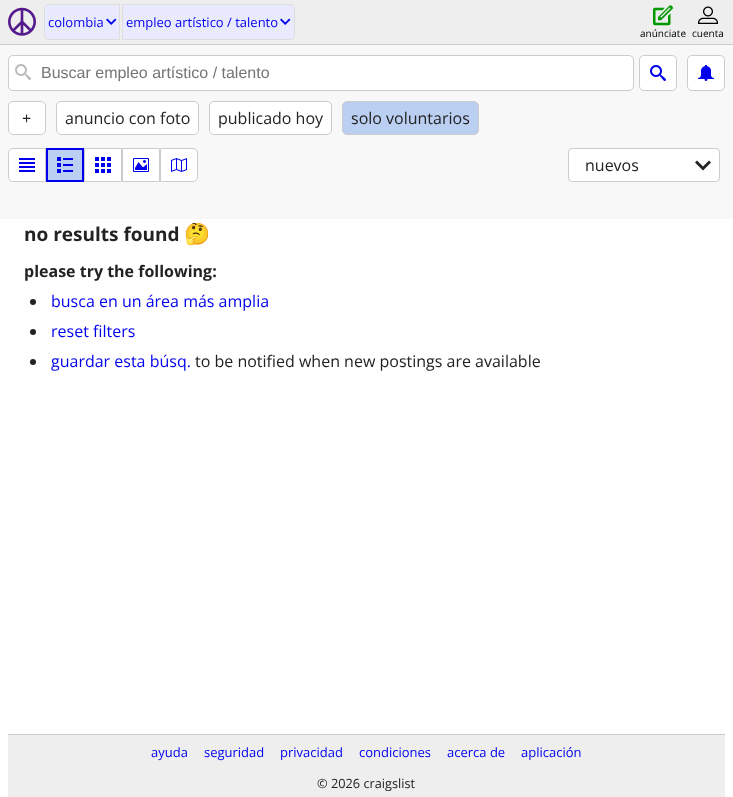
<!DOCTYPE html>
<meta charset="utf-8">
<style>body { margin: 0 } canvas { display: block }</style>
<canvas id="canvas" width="733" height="797"></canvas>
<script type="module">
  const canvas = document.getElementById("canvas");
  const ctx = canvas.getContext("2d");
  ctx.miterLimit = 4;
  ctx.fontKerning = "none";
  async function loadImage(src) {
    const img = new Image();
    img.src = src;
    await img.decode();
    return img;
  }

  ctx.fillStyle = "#ffffff";
  ctx.fillRect(0, 0, 733, 797);
  ctx.fillStyle = "#eeeeee";
  ctx.fillRect(0, 0, 733, 44);
  ctx.fillStyle = "#cccccc";
  ctx.fillRect(0, 44, 733, 1);
  ctx.drawImage(await loadImage("img1.png"), 8, 7, 28, 29);
  ctx.fillStyle = "#eaeaff";
  ctx.beginPath();
  ctx.roundRect(44.5, 4.5, 75, 35, [4.5, 0, 0, 4.5]);
  ctx.fill();
  ctx.strokeStyle = "#dddddd";
  ctx.stroke();
  ctx.font = "13px Open Sans";
  ctx.fillStyle = "#0000ee";
  ctx.fillText("colombia", 48, 27);
  ctx.drawImage(await loadImage("img2.png"), 106, 18, 11, 7);
  ctx.fillStyle = "#eaeaff";
  ctx.beginPath();
  ctx.roundRect(122.5, 4.5, 172, 35, [0, 4.5, 4.5, 0]);
  ctx.fill();
  ctx.stroke();
  ctx.fillStyle = "#0000ee";
  ctx.fillText("empleo artístico / talento", 126, 27);
  ctx.drawImage(await loadImage("img2.png"), 280, 18, 11, 7);
  ctx.drawImage(await loadImage("img3.png"), 653, 5, 20, 21);
  ctx.font = "10px Open Sans";
  ctx.fillStyle = "#000000";
  ctx.fillText("anúnciate", 640, 37);
  ctx.drawImage(await loadImage("img4.png"), 698, 6, 20, 18);
  ctx.fillText("cuenta", 692, 37);
  ctx.fillStyle = "#f8f8f8";
  ctx.fillRect(0, 45, 733, 174);
  ctx.fillStyle = "#ffffff";
  ctx.beginPath();
  ctx.roundRect(8.5, 55.5, 625, 35, 4.5);
  ctx.fill();
  ctx.strokeStyle = "#cccccc";
  ctx.stroke();
  ctx.drawImage(await loadImage("img5.png"), 15, 64, 16, 16);
  ctx.font = "16px Liberation Sans";
  ctx.fillStyle = "#757575";
  ctx.fillText("Buscar empleo artístico / talento", 41, 78);
  ctx.fillStyle = "#ffffff";
  ctx.beginPath();
  ctx.roundRect(639.5, 55.5, 37, 35, 4.5);
  ctx.fill();
  ctx.stroke();
  ctx.drawImage(await loadImage("img6.png"), 650, 65, 16, 16);
  ctx.beginPath();
  ctx.roundRect(687.5, 55.5, 37, 35, 4.5);
  ctx.fill();
  ctx.stroke();
  ctx.drawImage(await loadImage("img7.png"), 698, 65, 16, 16);
  ctx.beginPath();
  ctx.roundRect(8.5, 101.5, 37, 33, 4.5);
  ctx.fill();
  ctx.stroke();
  ctx.font = "16px Open Sans";
  ctx.fillStyle = "#222222";
  ctx.fillText("+", 22, 124);
  ctx.fillStyle = "#ffffff";
  ctx.beginPath();
  ctx.roundRect(56.5, 101.5, 142, 33, 4.5);
  ctx.fill();
  ctx.stroke();
  ctx.fillStyle = "#222222";
  ctx.fillText("anuncio con foto", 65, 124);
  ctx.fillStyle = "#ffffff";
  ctx.beginPath();
  ctx.roundRect(209.5, 101.5, 122, 33, 4.5);
  ctx.fill();
  ctx.stroke();
  ctx.fillStyle = "#222222";
  ctx.fillText("publicado hoy", 218, 124);
  ctx.fillStyle = "#bacff2";
  ctx.beginPath();
  ctx.roundRect(342.5, 101.5, 136, 33, 4.5);
  ctx.fill();
  ctx.stroke();
  ctx.fillStyle = "#222222";
  ctx.fillText("solo voluntarios", 351, 124);
  ctx.fillStyle = "#ffffff";
  ctx.beginPath();
  ctx.roundRect(8.5, 148.5, 37, 33, [4.5, 0, 0, 4.5]);
  ctx.fill();
  ctx.stroke();
  ctx.drawImage(await loadImage("img8.png"), 19, 158, 16, 14);
  ctx.fillStyle = "#bacff2";
  ctx.beginPath();
  ctx.rect(47, 149, 36, 32);
  ctx.fill();
  ctx.strokeStyle = "#0000ee";
  ctx.lineWidth = 2;
  ctx.stroke();
  ctx.drawImage(await loadImage("img9.png"), 57, 157, 16, 16);
  ctx.fillStyle = "#ffffff";
  ctx.beginPath();
  ctx.rect(84.5, 148.5, 37, 33);
  ctx.fill();
  ctx.strokeStyle = "#cccccc";
  ctx.lineWidth = 1;
  ctx.stroke();
  ctx.drawImage(await loadImage("img10.png"), 95, 157, 16, 16);
  ctx.beginPath();
  ctx.rect(122.5, 148.5, 37, 33);
  ctx.fill();
  ctx.stroke();
  ctx.drawImage(await loadImage("img11.png"), 133, 158, 16, 14);
  ctx.beginPath();
  ctx.roundRect(160.5, 148.5, 37, 33, [0, 4.5, 4.5, 0]);
  ctx.fill();
  ctx.stroke();
  ctx.drawImage(await loadImage("img12.png"), 171, 158, 16, 14);
  ctx.beginPath();
  ctx.roundRect(568.5, 148.5, 151, 33, 3.5);
  ctx.fill();
  ctx.stroke();
  ctx.fillStyle = "#222222";
  ctx.fillText("nuevos", 585, 171);
  ctx.drawImage(await loadImage("img13.png"), 695, 160, 16, 11);
  ctx.font = "bold 19px Open Sans";
  ctx.fillText("no results found", 24, 241);
  ctx.font = "bold 21px Noto Color Emoji";
  ctx.fillText("🤔", 184, 241);
  ctx.font = "bold 16px Open Sans";
  ctx.fillText("please try the following:", 24, 277);
  ctx.beginPath();
  ctx.arc(33, 302, 3, 0, Math.PI * 2);
  ctx.fill();
  ctx.font = "16px Open Sans";
  ctx.fillStyle = "#0000ee";
  ctx.fillText("busca en un área más amplia", 51, 307);
  ctx.fillStyle = "#222222";
  ctx.beginPath();
  ctx.arc(33, 332, 3, 0, Math.PI * 2);
  ctx.fill();
  ctx.fillStyle = "#0000ee";
  ctx.fillText("reset filters", 51, 337);
  ctx.fillStyle = "#222222";
  ctx.beginPath();
  ctx.arc(33, 362, 3, 0, Math.PI * 2);
  ctx.fill();
  ctx.fillStyle = "#0000ee";
  ctx.fillText("guardar esta búsq.", 51, 367);
  ctx.fillStyle = "#222222";
  ctx.fillText("to be notified when new postings are available", 195, 367);
  ctx.fillStyle = "#eeeeee";
  ctx.fillRect(8, 735, 717, 62);
  ctx.fillStyle = "#cccccc";
  ctx.fillRect(8, 734, 717, 1);
  ctx.font = "13px Open Sans";
  ctx.fillStyle = "#0000ee";
  ctx.fillText("ayuda", 151, 757);
  ctx.fillText("seguridad", 204, 757);
  ctx.fillText("privacidad", 280, 757);
  ctx.fillText("condiciones", 359, 757);
  ctx.fillText("acerca de", 447, 757);
  ctx.fillText("aplicación", 521, 757);
  ctx.font = "12.75px Open Sans";
  ctx.fillStyle = "#222222";
  ctx.fillText("© 2026 craigslist", 317, 788);
</script>
